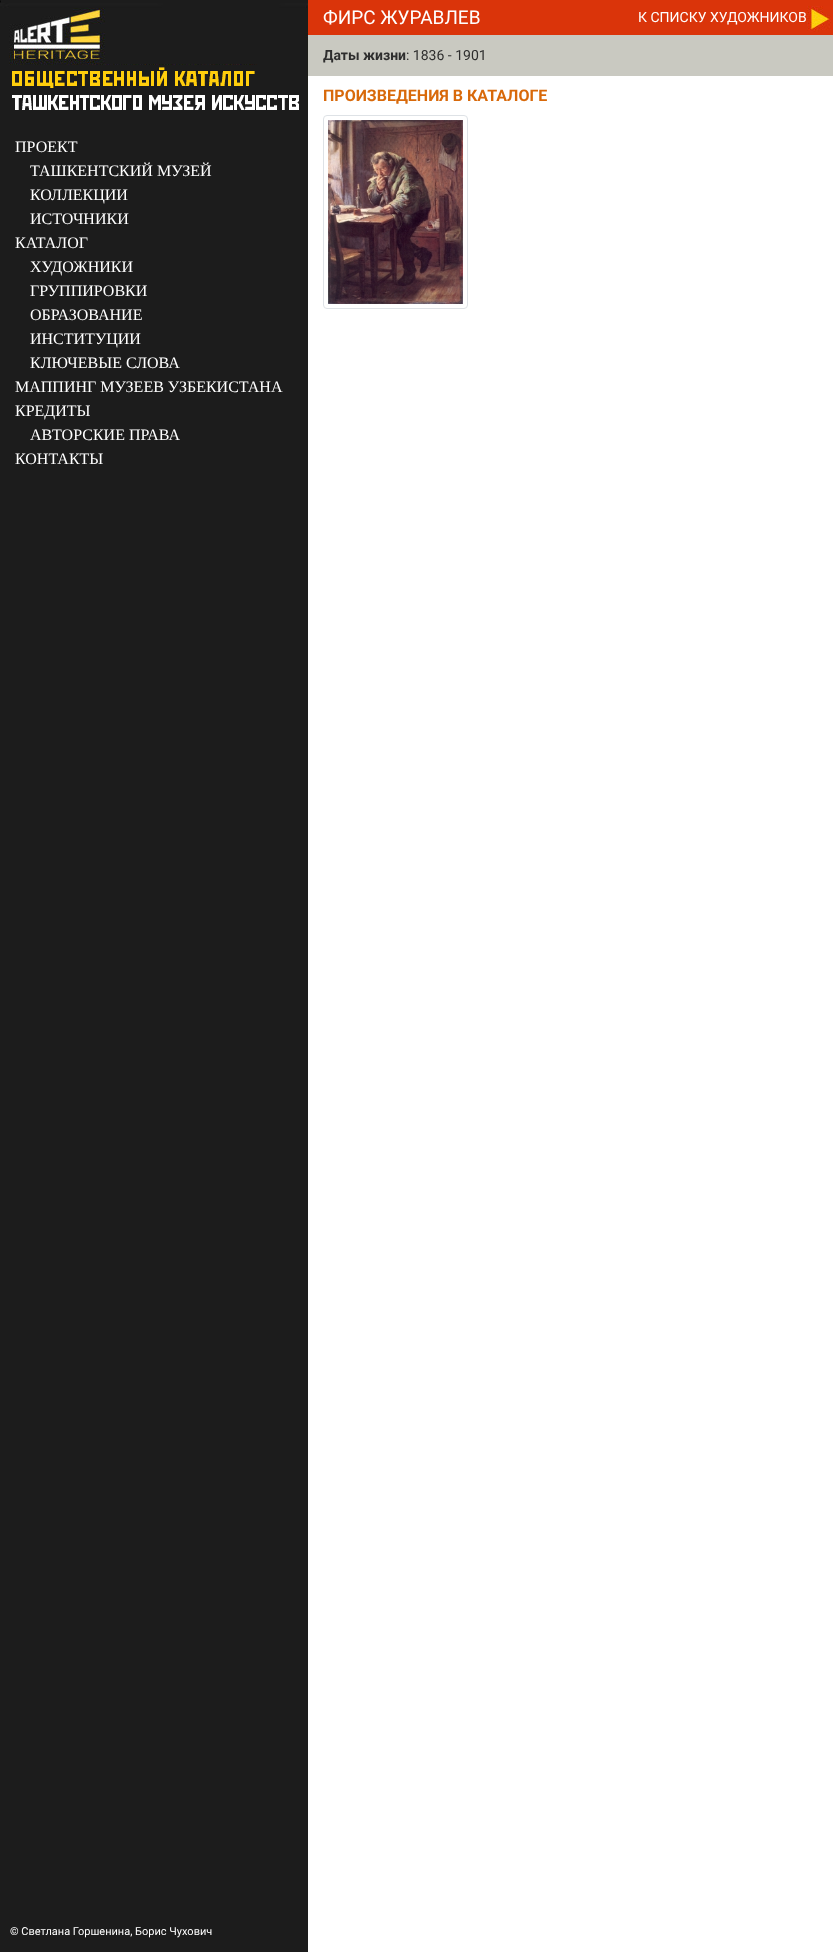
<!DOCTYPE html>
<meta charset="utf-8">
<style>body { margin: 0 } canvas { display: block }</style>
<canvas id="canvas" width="833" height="1952"></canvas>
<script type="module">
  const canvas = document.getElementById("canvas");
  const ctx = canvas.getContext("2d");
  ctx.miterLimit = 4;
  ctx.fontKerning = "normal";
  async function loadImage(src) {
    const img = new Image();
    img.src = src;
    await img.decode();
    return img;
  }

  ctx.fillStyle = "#ffffff";
  ctx.fillRect(0, 0, 833, 1952);
  ctx.fillStyle = "#da340a";
  ctx.fillRect(308, 0, 525, 35);
  ctx.font = "19px Roboto";
  ctx.fillStyle = "#ffffff";
  ctx.fillText("ФИРС ЖУРАВЛЕВ", 323, 24);
  ctx.font = "14px Roboto";
  ctx.fillText("К CПИСКУ ХУДОЖНИКОВ", 638, 22);
  ctx.drawImage(await loadImage("img1.png"), 807, 6, 24, 26);
  ctx.fillStyle = "#c9c9c1";
  ctx.fillRect(308, 35, 525, 41);
  ctx.font = "bold 14px Roboto";
  ctx.fillStyle = "#2e2e2e";
  ctx.fillText("Даты жизни", 323, 60);
  ctx.font = "14px Roboto";
  ctx.fillText(": 1836 - 1901", 406, 60);
  ctx.font = "bold 16px Roboto";
  ctx.fillStyle = "#d8690a";
  ctx.fillText("ПРОИЗВЕДЕНИЯ В КАТАЛОГЕ", 323, 101);
  ctx.beginPath();
  ctx.roundRect(323.5, 115.5, 144, 193, 3.5);
  ctx.strokeStyle = "#dee2e6";
  ctx.stroke();
  ctx.drawImage(await loadImage("img2.png"), 328, 120, 135, 184);
  ctx.fillStyle = "#1c1c1c";
  ctx.fillRect(0, 110, 308, 1842);
  ctx.drawImage(await loadImage("img3.png"), 0, 0, 308, 110);
  ctx.font = "16px Liberation Serif";
  ctx.fillStyle = "#ffffff";
  ctx.fillText("ПРОЕКТ", 15, 152);
  ctx.fillText("ТАШКЕНТСКИЙ МУЗЕЙ", 30, 176);
  ctx.fillText("КОЛЛЕКЦИИ", 30, 200);
  ctx.fillText("ИСТОЧНИКИ", 30, 224);
  ctx.fillText("КАТАЛОГ", 15, 248);
  ctx.fillText("ХУДОЖНИКИ", 30, 272);
  ctx.fillText("ГРУППИРОВКИ", 30, 296);
  ctx.fillText("ОБРАЗОВАНИЕ", 30, 320);
  ctx.fillText("ИНСТИТУЦИИ", 30, 344);
  ctx.fillText("КЛЮЧЕВЫЕ СЛОВА", 30, 368);
  ctx.fillText("МАППИНГ МУЗЕЕВ УЗБЕКИСТАНА", 15, 392);
  ctx.fillText("КРЕДИТЫ", 15, 416);
  ctx.fillText("АВТОРСКИЕ ПРАВА", 30, 440);
  ctx.fillText("КОНТАКТЫ", 15, 464);
  ctx.font = "11px Roboto";
  ctx.fillText("© Светлана Горшенина, Борис Чухович", 10, 1935);
</script>
